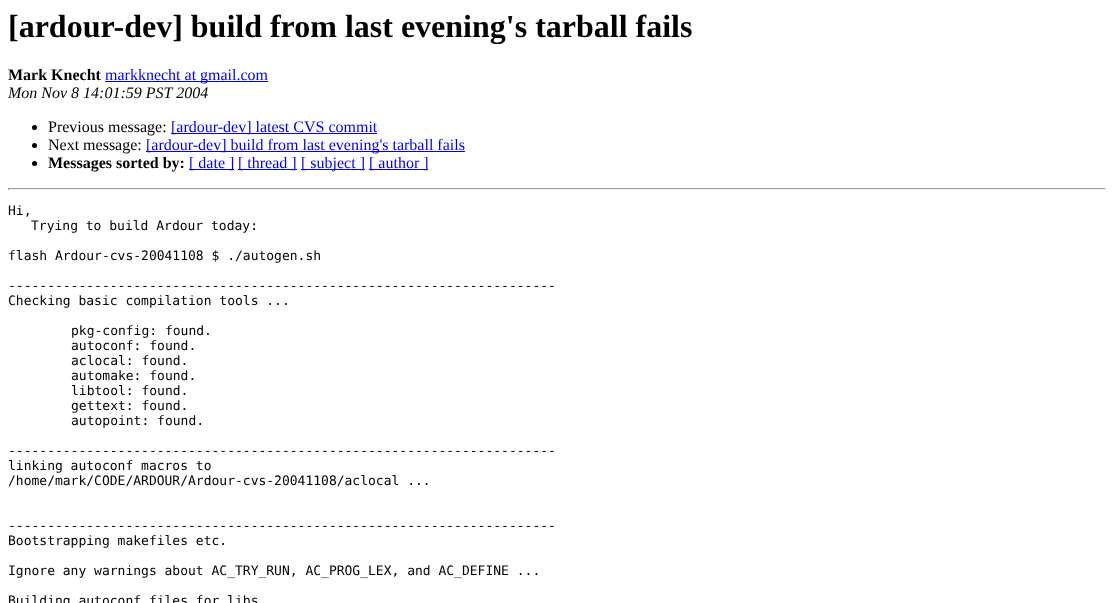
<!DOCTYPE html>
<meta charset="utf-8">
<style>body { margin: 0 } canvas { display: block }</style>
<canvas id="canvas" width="1114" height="603"></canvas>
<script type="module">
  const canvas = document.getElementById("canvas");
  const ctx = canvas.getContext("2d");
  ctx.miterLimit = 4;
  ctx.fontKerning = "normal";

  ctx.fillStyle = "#ffffff";
  ctx.fillRect(0, 0, 1114, 603);
  ctx.font = "bold 32px Liberation Serif";
  ctx.fillStyle = "#000000";
  ctx.fillText("[ardour-dev] build from last evening's tarball fails", 8, 37);
  ctx.font = "bold 16px Liberation Serif";
  ctx.fillText("Mark Knecht", 8, 80);
  ctx.fillStyle = "#0000ee";
  ctx.fillRect(105, 81, 163, 1);
  ctx.font = "16px Liberation Serif";
  ctx.fillText("markknecht at gmail.com", 105, 80);
  ctx.font = "italic 16px Liberation Serif";
  ctx.fillStyle = "#000000";
  ctx.fillText("Mon Nov 8 14:01:59 PST 2004", 8, 98);
  ctx.beginPath();
  ctx.arc(34.5, 127.5, 2.5, 0, Math.PI * 2);
  ctx.fill();
  ctx.font = "16px Liberation Serif";
  ctx.fillText("Previous message:", 48, 132);
  ctx.fillStyle = "#0000ee";
  ctx.fillRect(171, 133, 206, 1);
  ctx.fillText("[ardour-dev] latest CVS commit", 171, 132);
  ctx.fillStyle = "#000000";
  ctx.beginPath();
  ctx.arc(34.5, 145.5, 2.5, 0, Math.PI * 2);
  ctx.fill();
  ctx.fillText("Next message:", 48, 150);
  ctx.fillStyle = "#0000ee";
  ctx.fillRect(146, 151, 319, 1);
  ctx.fillText("[ardour-dev] build from last evening's tarball fails", 146, 150);
  ctx.fillStyle = "#000000";
  ctx.beginPath();
  ctx.arc(34.5, 163.5, 2.5, 0, Math.PI * 2);
  ctx.fill();
  ctx.font = "bold 16px Liberation Serif";
  ctx.fillText("Messages sorted by:", 48, 168);
  ctx.fillStyle = "#0000ee";
  ctx.fillRect(189, 169, 45, 1);
  ctx.font = "16px Liberation Serif";
  ctx.fillText("[ date ]", 189, 168);
  ctx.fillRect(238, 169, 59, 1);
  ctx.fillText("[ thread ]", 238, 168);
  ctx.fillRect(301, 169, 64, 1);
  ctx.fillText("[ subject ]", 301, 168);
  ctx.fillRect(369, 169, 59, 1);
  ctx.fillText("[ author ]", 369, 168);
  ctx.fillStyle = "#9f9f9f";
  ctx.fillRect(8, 188, 1098, 1);
  ctx.fillStyle = "#eeeeee";
  ctx.fillRect(1105, 188, 1, 2);
  ctx.fillRect(8, 189, 1098, 1);
  ctx.fillStyle = "#9f9f9f";
  ctx.fillRect(8, 188, 1, 2);
  ctx.font = "13px DejaVu Sans Mono";
  ctx.fillStyle = "#000000";
  ctx.fillText("Hi,", 8, 215);
  ctx.fillText("Trying to build Ardour today:", 31, 230);
  ctx.fillText("flash Ardour-cvs-20041108 $ ./autogen.sh", 8, 260);
  ctx.fillText("----------------------------------------------------------------------", 8, 290);
  ctx.fillText("Checking basic compilation tools ...", 8, 305);
  ctx.fillText("pkg-config: found.", 71, 335);
  ctx.fillText("autoconf: found.", 71, 350);
  ctx.fillText("aclocal: found.", 71, 365);
  ctx.fillText("automake: found.", 71, 380);
  ctx.fillText("libtool: found.", 71, 395);
  ctx.fillText("gettext: found.", 71, 410);
  ctx.fillText("autopoint: found.", 71, 425);
  ctx.fillText("----------------------------------------------------------------------", 8, 455);
  ctx.fillText("linking autoconf macros to", 8, 470);
  ctx.fillText("/home/mark/CODE/ARDOUR/Ardour-cvs-20041108/aclocal ...", 8, 485);
  ctx.fillText("----------------------------------------------------------------------", 8, 530);
  ctx.fillText("Bootstrapping makefiles etc.", 8, 545);
  ctx.fillText("Ignore any warnings about AC_TRY_RUN, AC_PROG_LEX, and AC_DEFINE ...", 8, 575);
  ctx.fillText("Building autoconf files for libs", 8, 605);
</script>
